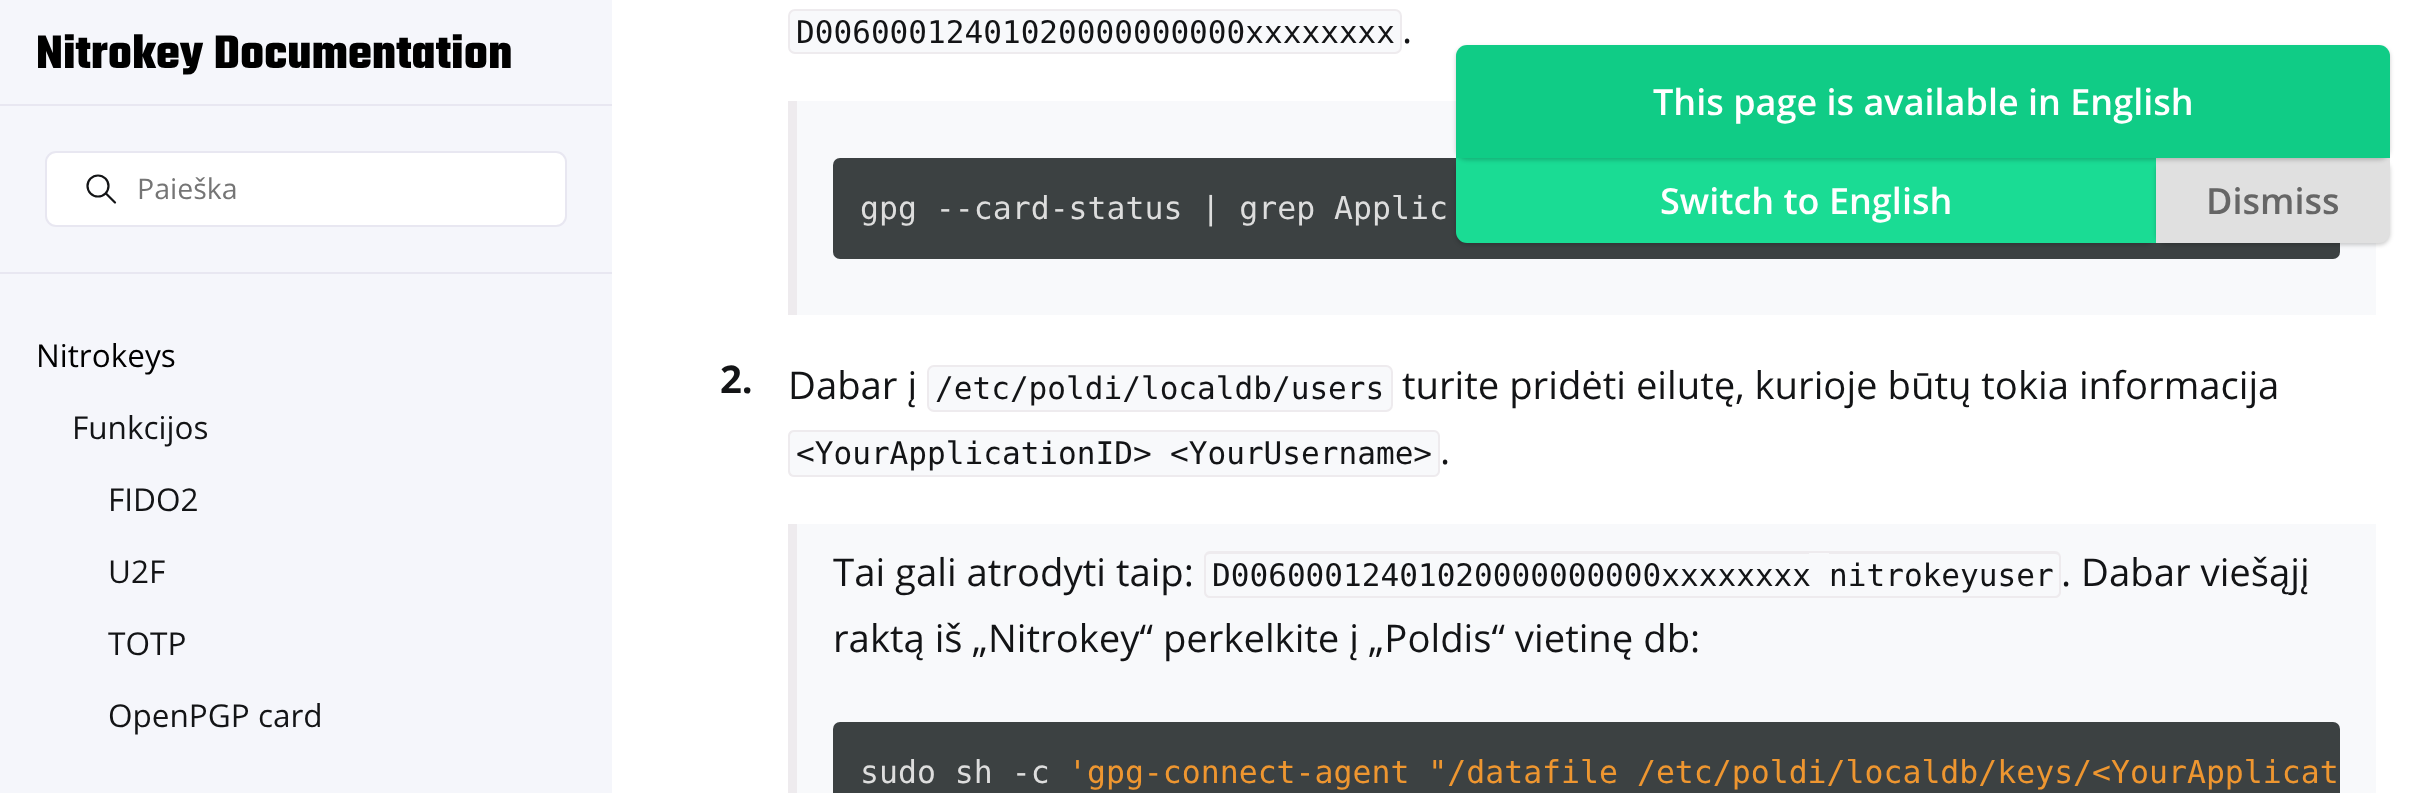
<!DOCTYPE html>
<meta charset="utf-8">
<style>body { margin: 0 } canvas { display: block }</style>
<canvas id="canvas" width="2433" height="793"></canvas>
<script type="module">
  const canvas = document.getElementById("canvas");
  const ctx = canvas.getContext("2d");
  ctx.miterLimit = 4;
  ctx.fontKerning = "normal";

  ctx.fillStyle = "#ffffff";
  ctx.fillRect(0, 0, 2433, 793);
  ctx.fillStyle = "#f5f6fb";
  ctx.fillRect(0, 0, 612, 793);
  ctx.fillStyle = "#e8e7f1";
  ctx.fillRect(0, 104, 612, 2);
  ctx.font = "300 50.5px Teko";
  ctx.fillStyle = "#000000";
  ctx.fillText("Nitrokey Documentation", 36, 68);
  ctx.fillStyle = "#ffffff";
  ctx.beginPath();
  ctx.roundRect(46, 152, 520, 74, 10);
  ctx.fill();
  ctx.strokeStyle = "#e8e7f1";
  ctx.lineWidth = 2;
  ctx.stroke();
  ctx.beginPath();
  ctx.arc(98, 186, 10.5, 0, Math.PI * 2);
  ctx.strokeStyle = "#131416";
  ctx.lineWidth = 2.2;
  ctx.stroke();
  ctx.beginPath();
  ctx.moveTo(115, 202.5);
  ctx.lineTo(106, 193.5);
  ctx.lineCap = "round";
  ctx.lineJoin = "round";
  ctx.stroke();
  ctx.font = "28.5px Open Sans";
  ctx.fillStyle = "#757575";
  ctx.fillText("Paieška", 137, 199);
  ctx.fillStyle = "#e8e7f1";
  ctx.fillRect(0, 272, 612, 2);
  ctx.font = "31.5px Open Sans";
  ctx.fillStyle = "#000000";
  ctx.fillText("Nitrokeys", 36, 367);
  ctx.fillStyle = "#131416";
  ctx.fillText("Funkcijos", 72, 439);
  ctx.fillText("FIDO2", 108, 511);
  ctx.fillText("U2F", 108, 583);
  ctx.fillText("TOTP", 108, 655);
  ctx.fillText("OpenPGP card", 108, 727);
  ctx.fillStyle = "#f8f9fb";
  ctx.beginPath();
  ctx.roundRect(789, 10, 612, 43, 6);
  ctx.fill();
  ctx.strokeStyle = "#eeebee";
  ctx.lineWidth = 2;
  ctx.lineJoin = "miter";
  ctx.stroke();
  ctx.font = "31.1px DejaVu Sans Mono";
  ctx.fillStyle = "#131416";
  ctx.fillText("D00600012401020000000000xxxxxxxx", 796, 43);
  ctx.font = "38.25px Open Sans";
  ctx.fillText(".", 1402, 43);
  ctx.fillStyle = "#f8f9fb";
  ctx.fillRect(797, 101, 1579, 214);
  ctx.fillStyle = "#eeebee";
  ctx.fillRect(788, 101, 9, 214);
  ctx.fillStyle = "#3c4142";
  ctx.beginPath();
  ctx.roundRect(833, 158, 1507, 101, 7);
  ctx.fill();
  ctx.font = "31.5px DejaVu Sans Mono";
  ctx.fillStyle = "#dddddd";
  ctx.fillText("gpg --card-status | grep Applic", 860, 219);
  ctx.font = "bold 38.25px Open Sans";
  ctx.fillStyle = "#131416";
  ctx.fillText("2.", 720, 393);
  ctx.font = "38.25px Open Sans";
  ctx.fillText("Dabar į", 788, 399);
  ctx.fillStyle = "#f8f9fb";
  ctx.beginPath();
  ctx.roundRect(928, 366, 464, 45, 6);
  ctx.fill();
  ctx.stroke();
  ctx.font = "31.1px DejaVu Sans Mono";
  ctx.fillStyle = "#131416";
  ctx.fillText("/etc/poldi/localdb/users", 935, 399);
  ctx.font = "38.25px Open Sans";
  ctx.fillText("turite pridėti eilutę, kurioje būtų tokia informacija", 1402, 399);
  ctx.fillStyle = "#f8f9fb";
  ctx.beginPath();
  ctx.roundRect(788, 430, 364, 47, [7, 0, 0, 7]);
  ctx.fill();
  ctx.fillStyle = "#eeebee";
  ctx.beginPath();
  ctx.moveTo(794, 430);
  ctx.lineTo(1152, 430);
  ctx.lineTo(1152, 477);
  ctx.lineTo(794, 477);
  ctx.bezierCurveTo(790, 477, 788, 474, 788, 471);
  ctx.lineTo(788, 436);
  ctx.bezierCurveTo(788, 433, 790, 430, 794, 430);
  ctx.closePath();
  ctx.moveTo(794, 432);
  ctx.lineTo(1152, 432);
  ctx.lineTo(1152, 475);
  ctx.lineTo(794, 475);
  ctx.bezierCurveTo(792, 475, 790, 473, 790, 471);
  ctx.lineTo(790, 436);
  ctx.bezierCurveTo(790, 434, 792, 432, 794, 432);
  ctx.closePath();
  ctx.fill("evenodd");
  ctx.font = "31.1px DejaVu Sans Mono";
  ctx.fillStyle = "#131416";
  ctx.fillText("<YourApplicationID>", 796, 464);
  ctx.fillStyle = "#eeebee";
  ctx.fillRect(1152, 475, 18, 2);
  ctx.fillStyle = "#f8f9fb";
  ctx.beginPath();
  ctx.roundRect(1170, 430, 270, 47, [0, 7, 7, 0]);
  ctx.fill();
  ctx.fillStyle = "#eeebee";
  ctx.beginPath();
  ctx.moveTo(1170, 430);
  ctx.lineTo(1434, 430);
  ctx.bezierCurveTo(1437, 430, 1440, 433, 1440, 436);
  ctx.lineTo(1440, 471);
  ctx.bezierCurveTo(1440, 474, 1437, 477, 1434, 477);
  ctx.lineTo(1170, 477);
  ctx.closePath();
  ctx.moveTo(1170, 432);
  ctx.lineTo(1434, 432);
  ctx.bezierCurveTo(1436, 432, 1438, 434, 1438, 436);
  ctx.lineTo(1438, 471);
  ctx.bezierCurveTo(1438, 473, 1436, 475, 1434, 475);
  ctx.lineTo(1170, 475);
  ctx.closePath();
  ctx.fill("evenodd");
  ctx.fillStyle = "#131416";
  ctx.fillText("<YourUsername>", 1170, 464);
  ctx.fillStyle = "#f8f9fb";
  ctx.fillRect(1152, 432, 18, 43);
  ctx.fillStyle = "#eeebee";
  ctx.fillRect(1152, 430, 18, 2);
  ctx.font = "38.25px Open Sans";
  ctx.fillStyle = "#131416";
  ctx.fillText(".", 1440, 464);
  ctx.fillStyle = "#f8f9fb";
  ctx.fillRect(797, 524, 1579, 269);
  ctx.fillStyle = "#eeebee";
  ctx.fillRect(788, 524, 9, 269);
  ctx.fillStyle = "#131416";
  ctx.fillText("Tai gali atrodyti taip:", 833, 586);
  ctx.fillStyle = "#eeebee";
  ctx.beginPath();
  ctx.moveTo(1210, 551);
  ctx.lineTo(1809, 551);
  ctx.lineTo(1809, 598);
  ctx.lineTo(1210, 598);
  ctx.bezierCurveTo(1207, 598, 1204, 596, 1204, 592);
  ctx.lineTo(1204, 557);
  ctx.bezierCurveTo(1204, 554, 1207, 551, 1210, 551);
  ctx.closePath();
  ctx.moveTo(1210, 554);
  ctx.lineTo(1809, 554);
  ctx.lineTo(1809, 596);
  ctx.lineTo(1210, 596);
  ctx.bezierCurveTo(1208, 596, 1206, 594, 1206, 592);
  ctx.lineTo(1206, 557);
  ctx.bezierCurveTo(1206, 555, 1208, 554, 1210, 554);
  ctx.closePath();
  ctx.fill("evenodd");
  ctx.font = "31.1px DejaVu Sans Mono";
  ctx.fillStyle = "#131416";
  ctx.fillText("D00600012401020000000000xxxxxxxx", 1212, 586);
  ctx.fillStyle = "#eeebee";
  ctx.fillRect(1809, 551, 20, 2);
  ctx.beginPath();
  ctx.moveTo(1829, 551);
  ctx.lineTo(2055, 551);
  ctx.bezierCurveTo(2058, 551, 2061, 554, 2061, 557);
  ctx.lineTo(2061, 592);
  ctx.bezierCurveTo(2061, 596, 2058, 598, 2055, 598);
  ctx.lineTo(1829, 598);
  ctx.closePath();
  ctx.moveTo(1829, 554);
  ctx.lineTo(2055, 554);
  ctx.bezierCurveTo(2057, 554, 2059, 555, 2059, 557);
  ctx.lineTo(2059, 592);
  ctx.bezierCurveTo(2059, 594, 2057, 596, 2055, 596);
  ctx.lineTo(1829, 596);
  ctx.closePath();
  ctx.fill("evenodd");
  ctx.fillStyle = "#131416";
  ctx.fillText("nitrokeyuser", 1829, 586);
  ctx.fillStyle = "#eeebee";
  ctx.fillRect(1809, 596, 20, 2);
  ctx.font = "38.25px Open Sans";
  ctx.fillStyle = "#131416";
  ctx.fillText(". Dabar viešąjį", 2061, 586);
  ctx.fillText("raktą iš „Nitrokey“ perkelkite į „Poldis“ vietinę db:", 833, 652);
  ctx.fillStyle = "#3c4142";
  ctx.beginPath();
  ctx.roundRect(833, 722, 1507, 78, 7);
  ctx.fill();
  ctx.font = "31.5px DejaVu Sans Mono";
  ctx.fillStyle = "#dddddd";
  ctx.fillText("sudo sh -c", 860, 783);
  ctx.fillStyle = "#ee9630";
  ctx.fillText("'gpg-connect-agent \"/datafile /etc/poldi/localdb/keys/<YourApplicat", 1068, 783);
  ctx.fillStyle = "rgba(0, 0, 0, 0.2)";
  ctx.filter = "blur(2px)";
  ctx.beginPath();
  ctx.roundRect(1456, 160, 700, 85, 11);
  ctx.fill();
  ctx.filter = "none";
  ctx.fillStyle = "#1adc94";
  ctx.beginPath();
  ctx.roundRect(1456, 158, 700, 85, [0, 0, 0, 11]);
  ctx.fill();
  ctx.fillStyle = "rgba(0, 0, 0, 0.2)";
  ctx.filter = "blur(2px)";
  ctx.beginPath();
  ctx.roundRect(2156, 160, 234, 85, 11);
  ctx.fill();
  ctx.filter = "none";
  ctx.fillStyle = "#e0e0e0";
  ctx.beginPath();
  ctx.roundRect(2156, 158, 234, 85, [0, 0, 11, 0]);
  ctx.fill();
  ctx.fillStyle = "rgba(0, 0, 0, 0.2)";
  ctx.filter = "blur(2px)";
  ctx.beginPath();
  ctx.roundRect(1456, 47, 934, 113, 11);
  ctx.fill();
  ctx.filter = "none";
  ctx.fillStyle = "#10cc86";
  ctx.beginPath();
  ctx.roundRect(1456, 45, 934, 113, [11, 11, 0, 0]);
  ctx.fill();
  ctx.font = "600 36px Open Sans";
  ctx.fillStyle = "#ffffff";
  ctx.fillText("This page is available in English", 1653, 115);
  ctx.fillText("Switch to English", 1660, 214);
  ctx.fillStyle = "#666666";
  ctx.fillText("Dismiss", 2206, 214);
</script>
